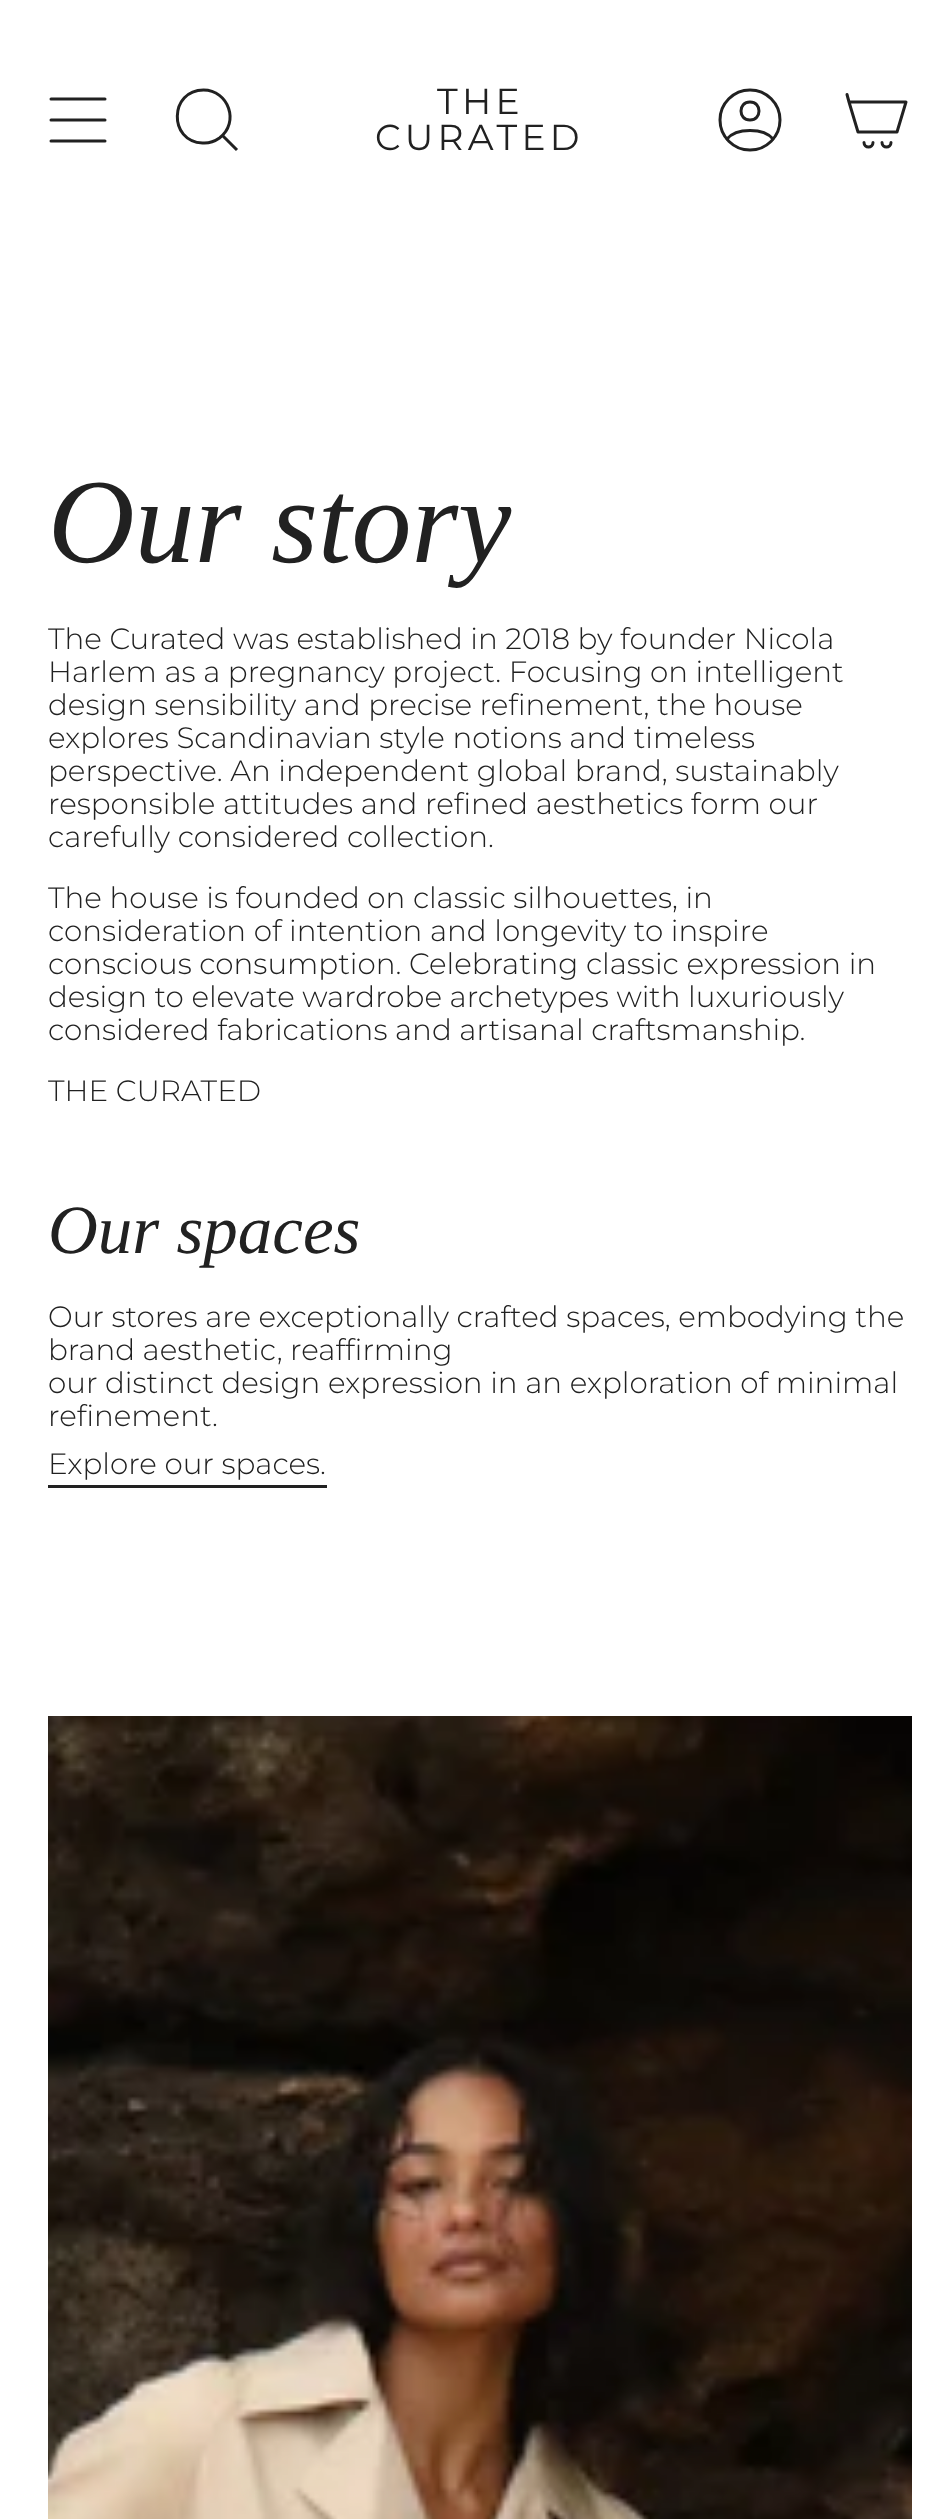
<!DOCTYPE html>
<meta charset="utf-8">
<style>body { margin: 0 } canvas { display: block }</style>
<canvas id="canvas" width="939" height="2519"></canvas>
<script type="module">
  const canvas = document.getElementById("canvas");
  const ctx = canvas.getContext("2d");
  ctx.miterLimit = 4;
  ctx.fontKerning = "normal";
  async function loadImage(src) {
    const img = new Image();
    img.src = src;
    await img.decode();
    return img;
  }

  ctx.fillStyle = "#ffffff";
  ctx.fillRect(0, 0, 939, 2519);
  ctx.beginPath();
  ctx.moveTo(51, 99);
  ctx.lineTo(105, 99);
  ctx.moveTo(51, 120);
  ctx.lineTo(105, 120);
  ctx.moveTo(51, 141);
  ctx.lineTo(105, 141);
  ctx.strokeStyle = "#212121";
  ctx.lineWidth = 3;
  ctx.lineCap = "round";
  ctx.lineJoin = "round";
  ctx.stroke();
  ctx.beginPath();
  ctx.moveTo(203.5, 90);
  ctx.bezierCurveTo(228.5, 90, 240, 122.5, 219.5, 138);
  ctx.bezierCurveTo(214.5, 141.5, 208.5, 143.5, 202.5, 143);
  ctx.bezierCurveTo(168, 141.5, 169.5, 90, 203.5, 90);
  ctx.closePath();
  ctx.moveTo(222.5, 135.5);
  ctx.lineTo(237, 150);
  ctx.lineCap = "butt";
  ctx.lineJoin = "miter";
  ctx.stroke();
  ctx.letterSpacing = "4.25px";
  ctx.font = "36px Montserrat";
  ctx.fillStyle = "#212121";
  ctx.fillText("THE", 437, 114);
  ctx.fillText("CURATED", 375, 150);
  ctx.beginPath();
  ctx.moveTo(750, 90);
  ctx.bezierCurveTo(733.5, 90, 720, 103.5, 720, 120);
  ctx.bezierCurveTo(720, 136.5, 733.5, 150, 750, 150);
  ctx.bezierCurveTo(766.5, 150, 780, 136.5, 780, 120);
  ctx.bezierCurveTo(780, 103.5, 766.5, 90, 750, 90);
  ctx.closePath();
  ctx.lineCap = "round";
  ctx.lineJoin = "round";
  ctx.stroke();
  ctx.beginPath();
  ctx.moveTo(727, 139);
  ctx.bezierCurveTo(736, 127.5, 764, 127.5, 773, 139);
  ctx.moveTo(750, 120);
  ctx.bezierCurveTo(762, 120, 762, 102, 750, 102);
  ctx.bezierCurveTo(738, 102, 738, 120, 750, 120);
  ctx.closePath();
  ctx.stroke();
  ctx.beginPath();
  ctx.moveTo(849, 102);
  ctx.lineTo(906, 102);
  ctx.lineTo(897, 132);
  ctx.lineTo(858, 132);
  ctx.closePath();
  ctx.moveTo(849, 102);
  ctx.lineTo(847, 94.5);
  ctx.moveTo(873, 142.5);
  ctx.bezierCurveTo(873, 148.5, 864, 148.5, 864, 142.5);
  ctx.moveTo(891, 142.5);
  ctx.bezierCurveTo(891, 148.5, 882, 148.5, 882, 142.5);
  ctx.stroke();
  ctx.letterSpacing = "0px";
  ctx.font = "italic 120px Liberation Serif";
  ctx.fillText("Our story", 48, 562);
  ctx.font = "300 29.4px Montserrat";
  ctx.fillText("The Curated was established in 2018 by founder Nicola", 48, 649);
  ctx.fillText("Harlem as a pregnancy project. Focusing on intelligent", 48, 682);
  ctx.fillText("design sensibility and precise refinement, the house", 48, 715);
  ctx.fillText("explores Scandinavian style notions and timeless", 48, 748);
  ctx.fillText("perspective. An independent global brand, sustainably", 48, 781);
  ctx.fillText("responsible attitudes and refined aesthetics form our", 48, 814);
  ctx.fillText("carefully considered collection.", 48, 847);
  ctx.fillText("The house is founded on classic silhouettes, in", 48, 908);
  ctx.fillText("consideration of intention and longevity to inspire", 48, 941);
  ctx.fillText("conscious consumption. Celebrating classic expression in", 48, 974);
  ctx.fillText("design to elevate wardrobe archetypes with luxuriously", 48, 1007);
  ctx.fillText("considered fabrications and artisanal craftsmanship.", 48, 1040);
  ctx.fillText("THE CURATED", 48, 1101);
  ctx.font = "italic 69px Liberation Serif";
  ctx.fillText("Our spaces", 48, 1253);
  ctx.font = "300 29.4px Montserrat";
  ctx.fillText("Our stores are exceptionally crafted spaces, embodying the", 48, 1327);
  ctx.fillText("brand aesthetic, reaffirming", 48, 1360);
  ctx.fillText("our distinct design expression in an exploration of minimal", 48, 1393);
  ctx.fillText("refinement.", 48, 1426);
  ctx.fillText("Explore our spaces.", 48, 1474);
  ctx.fillRect(48, 1485, 279, 3);
  ctx.drawImage(await loadImage("img1.png"), 48, 1716, 864, 803);
</script>
